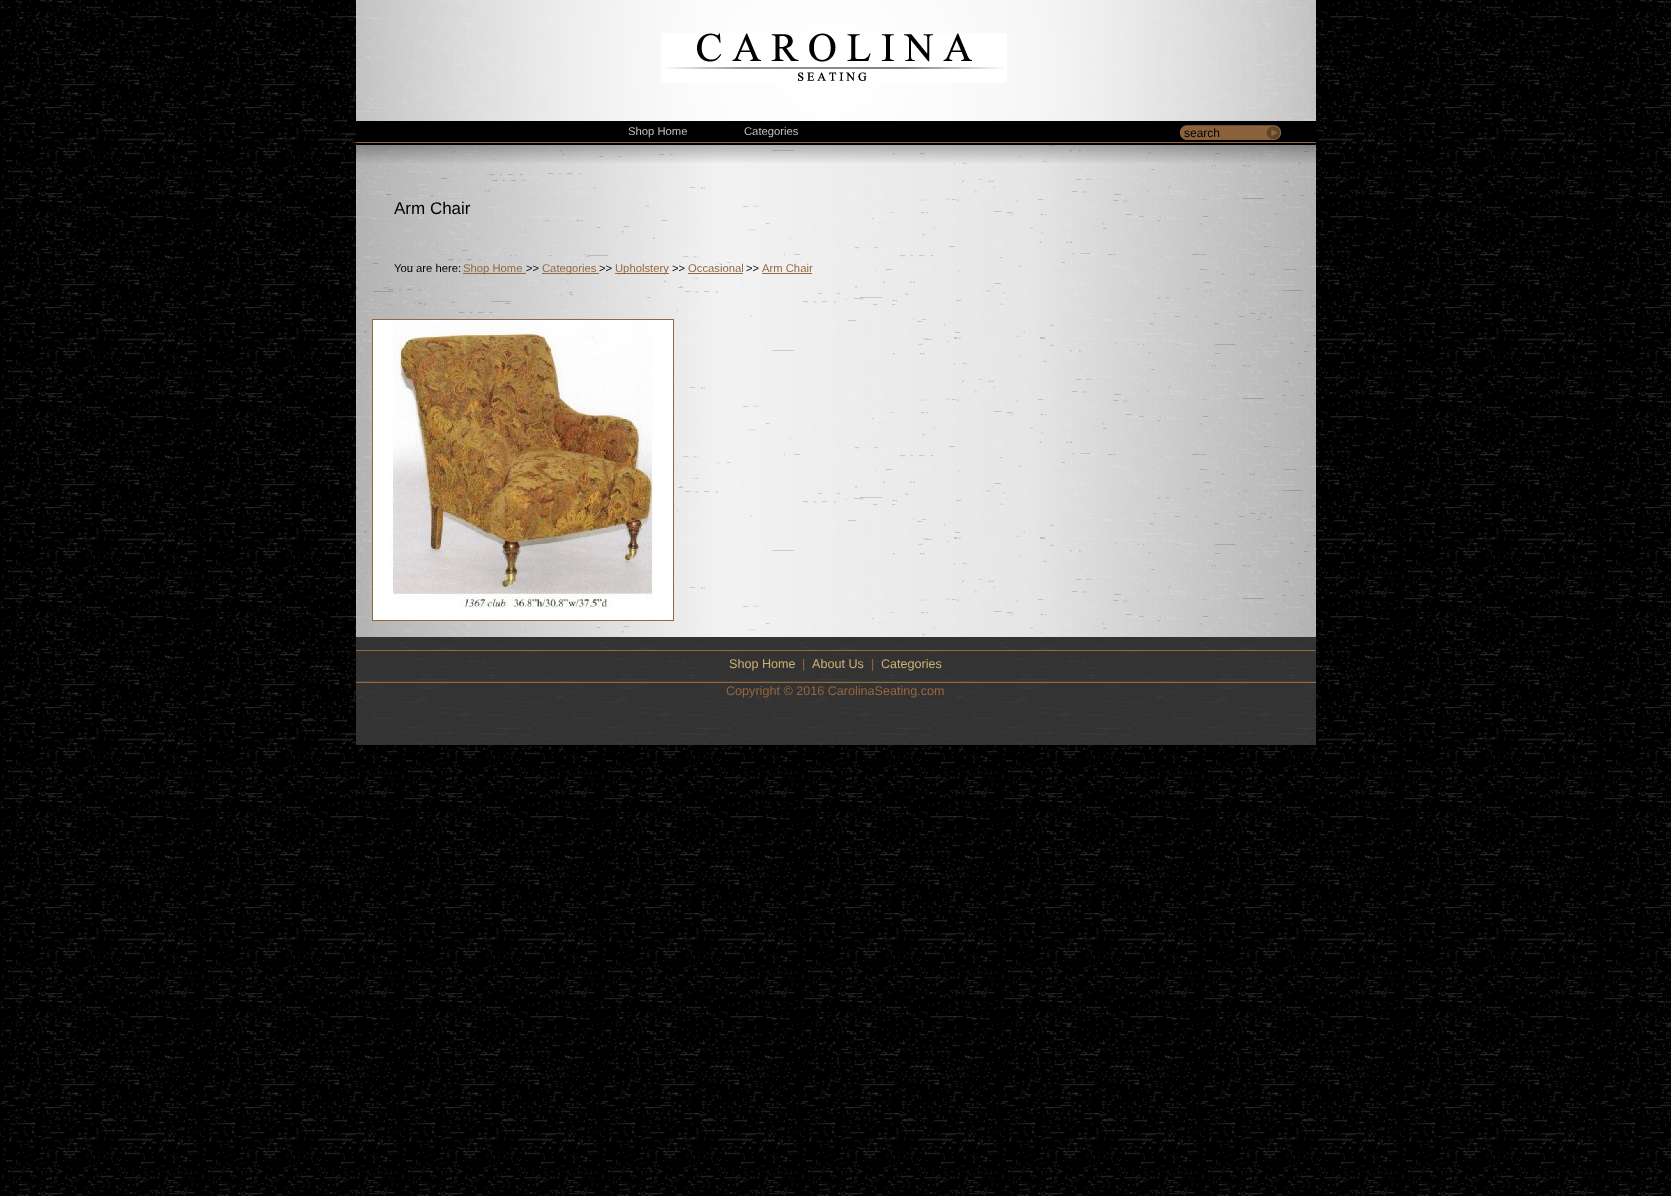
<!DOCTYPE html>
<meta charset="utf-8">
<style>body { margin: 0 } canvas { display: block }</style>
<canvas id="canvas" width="1671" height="1196"></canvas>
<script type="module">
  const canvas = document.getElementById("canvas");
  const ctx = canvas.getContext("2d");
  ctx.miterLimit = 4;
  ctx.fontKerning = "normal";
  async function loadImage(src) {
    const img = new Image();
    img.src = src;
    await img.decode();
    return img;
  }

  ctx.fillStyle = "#ffffff";
  ctx.fillRect(0, 0, 1671, 1196);
  ctx.drawImage(await loadImage("img1.png"), 0, 0, 1671, 1196);
  ctx.drawImage(await loadImage("img2.png"), 356, 0, 960, 121);
  ctx.drawImage(await loadImage("img3.png"), 661, 33, 346, 50);
  ctx.drawImage(await loadImage("img4.png"), 356, 145, 960, 492);
  ctx.drawImage(await loadImage("img5.png"), 356, 121, 960, 42);
  ctx.font = "11.25px Liberation Sans";
  ctx.fillStyle = "#c0c0c0";
  ctx.fillText("Shop Home", 628, 135);
  ctx.fillText("Categories", 744, 135);
  ctx.drawImage(await loadImage("img6.png"), 1180, 125, 85, 15);
  ctx.font = "12px Liberation Sans";
  ctx.fillStyle = "#000000";
  ctx.fillText("search", 1184, 137);
  ctx.drawImage(await loadImage("img7.png"), 1265, 125, 16, 15);
  ctx.font = "17px Liberation Sans";
  ctx.fillText("Arm Chair", 394, 214);
  ctx.font = "11.25px Liberation Sans";
  ctx.fillText("You are here:", 394, 272);
  ctx.fillStyle = "#96673e";
  ctx.fillRect(463, 273, 63, 1);
  ctx.fillText("Shop Home", 463, 272);
  ctx.fillStyle = "#000000";
  ctx.fillText(">>", 526, 272);
  ctx.fillStyle = "#96673e";
  ctx.fillRect(542, 273, 57, 1);
  ctx.fillText("Categories", 542, 272);
  ctx.fillStyle = "#000000";
  ctx.fillText(">>", 599, 272);
  ctx.fillStyle = "#96673e";
  ctx.fillRect(615, 273, 54, 1);
  ctx.fillText("Upholstery", 615, 272);
  ctx.fillStyle = "#000000";
  ctx.fillText(">>", 672, 272);
  ctx.fillStyle = "#96673e";
  ctx.fillText("Occasional", 688, 272);
  ctx.fillRect(688, 273, 55, 1);
  ctx.fillStyle = "#000000";
  ctx.fillText(">>", 746, 272);
  ctx.fillStyle = "#96673e";
  ctx.fillText("Arm Chair", 762, 272);
  ctx.fillRect(762, 273, 50, 1);
  ctx.strokeStyle = "#96673e";
  ctx.strokeRect(372.5, 319.5, 301, 301);
  ctx.drawImage(await loadImage("img8.png"), 373, 320, 300, 300);
  ctx.drawImage(await loadImage("img9.png"), 356, 637, 960, 108);
  ctx.font = "12.6px Liberation Sans";
  ctx.fillStyle = "#ccb175";
  ctx.fillText("Shop Home", 729, 668);
  ctx.fillStyle = "#96673e";
  ctx.fillText("|", 802, 668);
  ctx.fillStyle = "#ccb175";
  ctx.fillText("About Us", 812, 668);
  ctx.fillStyle = "#96673e";
  ctx.fillText("|", 871, 668);
  ctx.fillStyle = "#ccb175";
  ctx.fillText("Categories", 881, 668);
  ctx.fillStyle = "#96673e";
  ctx.fillText("Copyright © 2016 CarolinaSeating.com", 726, 695);
</script>
